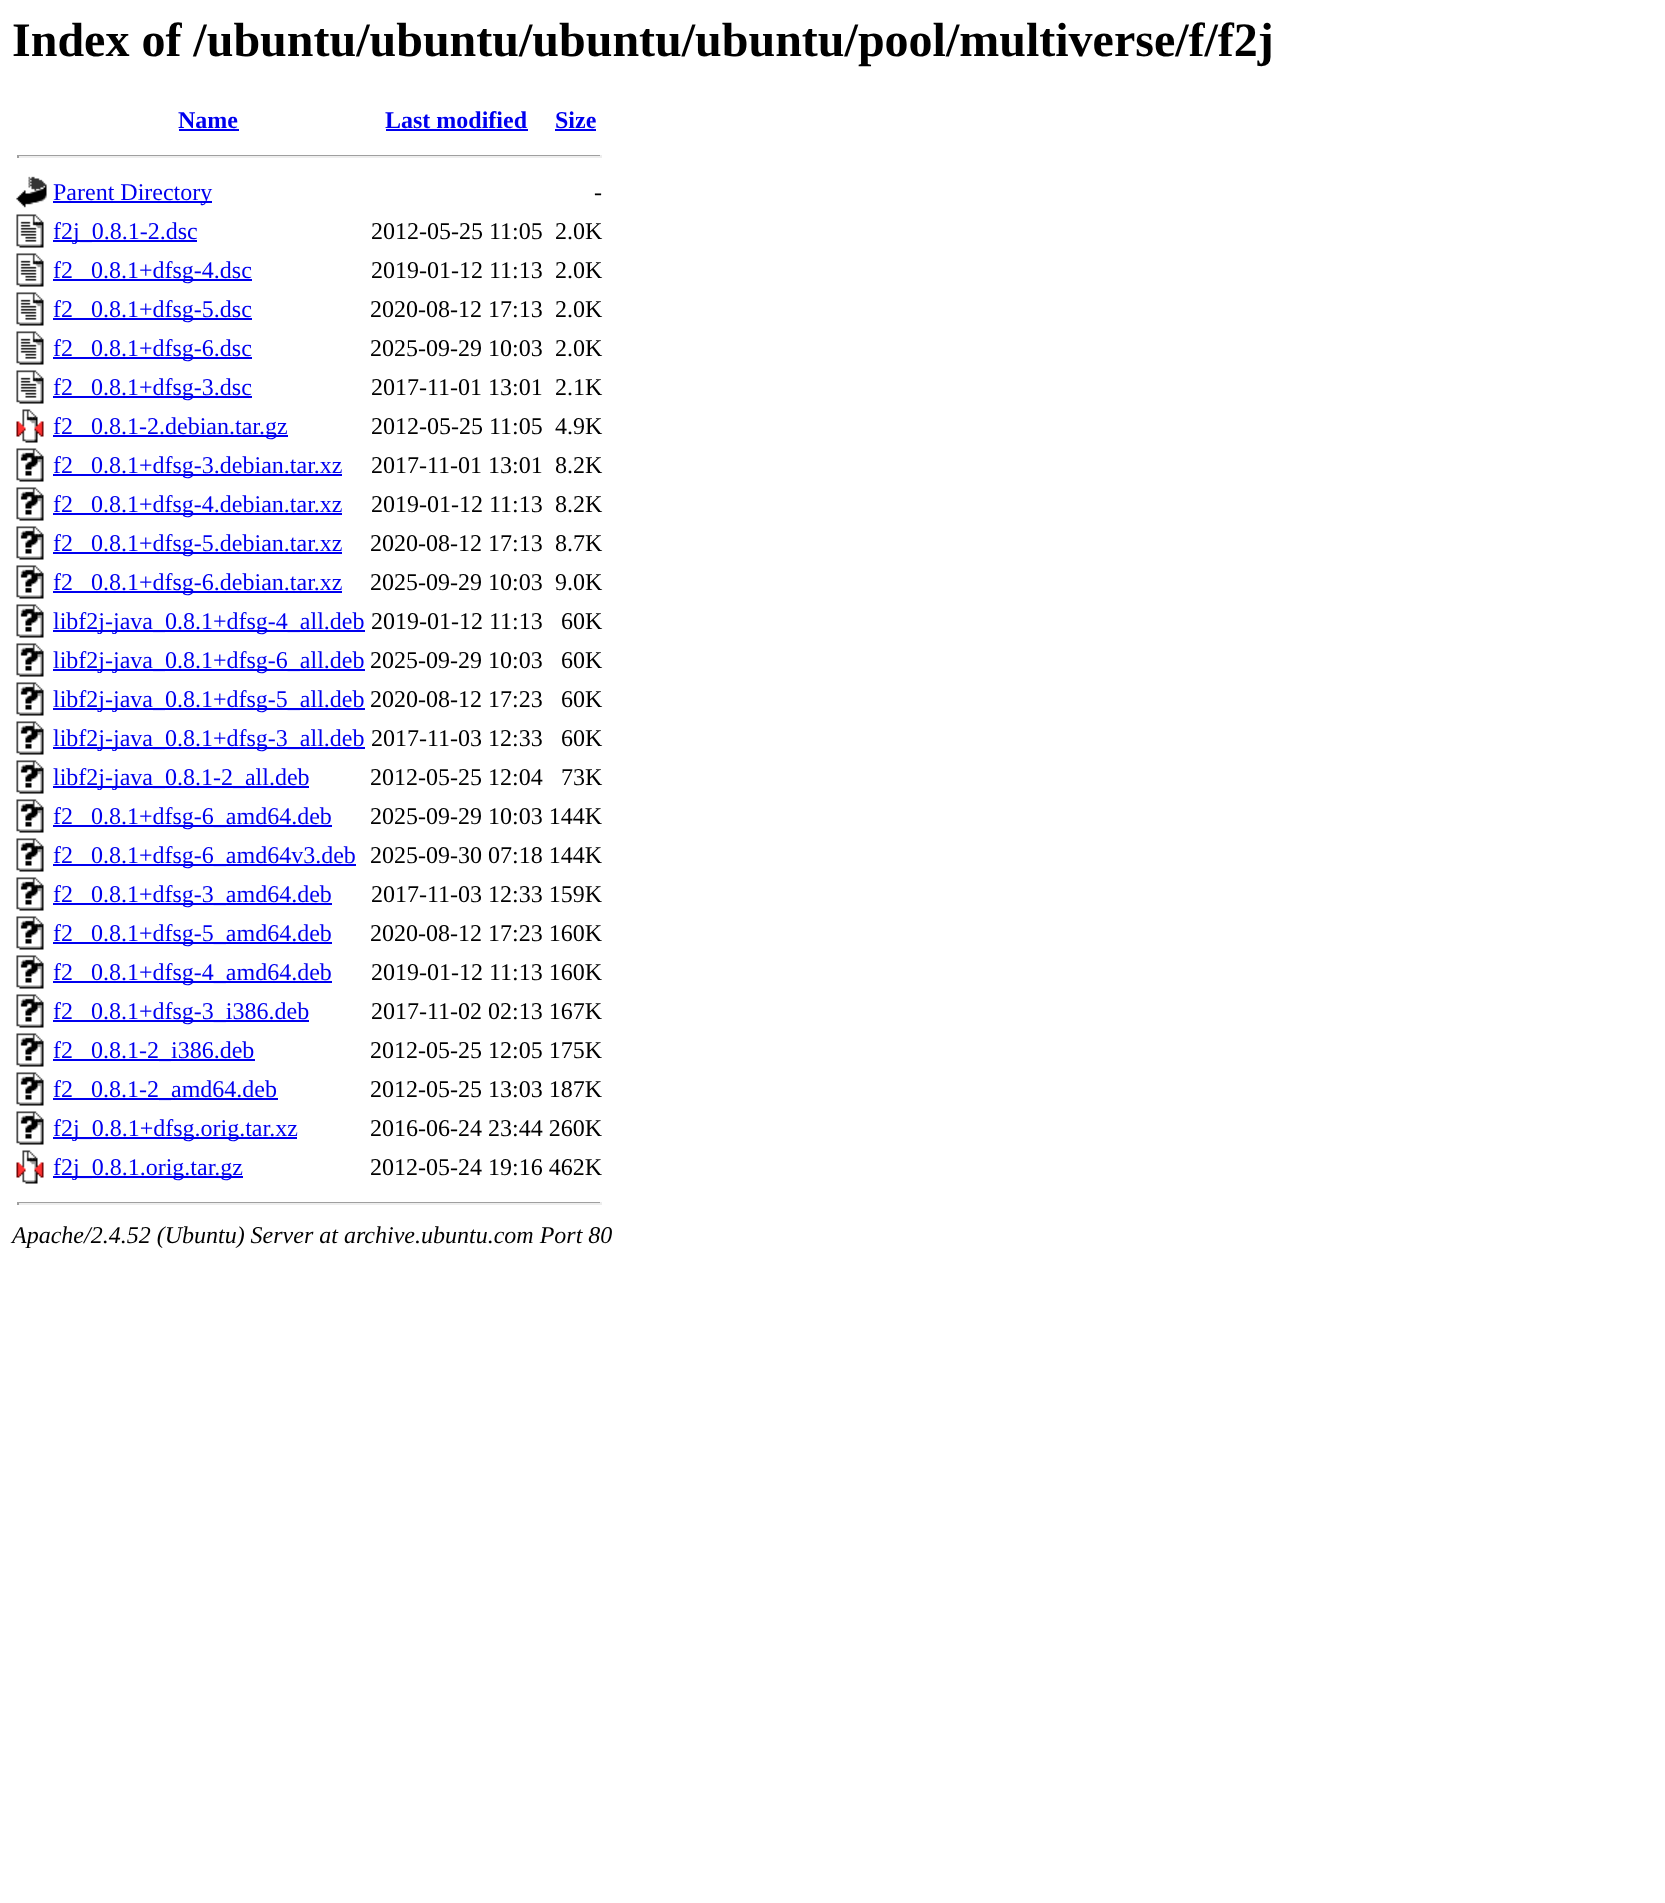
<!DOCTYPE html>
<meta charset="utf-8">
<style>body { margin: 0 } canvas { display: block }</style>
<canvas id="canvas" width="1665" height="1903"></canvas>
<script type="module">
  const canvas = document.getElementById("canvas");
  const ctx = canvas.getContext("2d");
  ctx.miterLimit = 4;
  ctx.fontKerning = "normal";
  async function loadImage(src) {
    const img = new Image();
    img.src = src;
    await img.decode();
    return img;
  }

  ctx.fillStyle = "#ffffff";
  ctx.fillRect(0, 0, 1665, 1903);
  ctx.font = "bold 48px Liberation Serif";
  ctx.fillStyle = "#000000";
  ctx.fillText("Index of /ubuntu/ubuntu/ubuntu/ubuntu/pool/multiverse/f/f2j", 12, 56);
  ctx.font = "bold 24px Liberation Serif";
  ctx.fillStyle = "#0000ee";
  ctx.fillText("Name", 178, 128);
  ctx.fillRect(179, 129, 60, 2);
  ctx.fillText("Last modified", 385, 128);
  ctx.fillRect(386, 129, 142, 2);
  ctx.fillText("Size", 555, 128);
  ctx.fillRect(555, 129, 41, 2);
  ctx.fillStyle = "#9f9f9f";
  ctx.fillRect(17, 155, 585, 1);
  ctx.fillStyle = "#eeeeee";
  ctx.fillRect(600, 155, 2, 3);
  ctx.fillRect(17, 156, 585, 2);
  ctx.fillStyle = "#9f9f9f";
  ctx.fillRect(17, 155, 2, 3);
  ctx.drawImage(await loadImage("img1.png"), 16, 176, 31, 32);
  ctx.fillStyle = "#0000ee";
  ctx.fillRect(53, 201, 159, 2);
  ctx.font = "24px Liberation Serif";
  ctx.fillText("Parent Directory", 53, 200);
  ctx.fillStyle = "#000000";
  ctx.fillText("-", 594, 200);
  ctx.drawImage(await loadImage("img2.png"), 16, 214, 28, 34);
  ctx.fillStyle = "#0000ee";
  ctx.fillRect(53, 240, 144, 2);
  ctx.fillText("f2j_0.8.1-2.dsc", 53, 239);
  ctx.fillStyle = "#000000";
  ctx.fillText("2012-05-25 11:05", 371, 239);
  ctx.fillText("2.0K", 555, 239);
  ctx.drawImage(await loadImage("img2.png"), 16, 253, 28, 34);
  ctx.fillStyle = "#0000ee";
  ctx.fillText("f2", 53, 278);
  ctx.fillRect(53, 279, 199, 2);
  ctx.fillText("0.8.1+dfsg-4.dsc", 91, 278);
  ctx.fillStyle = "#000000";
  ctx.fillText("2019-01-12 11:13", 371, 278);
  ctx.fillText("2.0K", 555, 278);
  ctx.drawImage(await loadImage("img2.png"), 16, 292, 28, 34);
  ctx.fillStyle = "#0000ee";
  ctx.fillText("f2", 53, 317);
  ctx.fillRect(53, 318, 199, 2);
  ctx.fillText("0.8.1+dfsg-5.dsc", 91, 317);
  ctx.fillStyle = "#000000";
  ctx.fillText("2020-08-12 17:13", 370, 317);
  ctx.fillText("2.0K", 555, 317);
  ctx.drawImage(await loadImage("img2.png"), 16, 331, 28, 34);
  ctx.fillStyle = "#0000ee";
  ctx.fillText("f2", 53, 356);
  ctx.fillRect(53, 357, 199, 2);
  ctx.fillText("0.8.1+dfsg-6.dsc", 91, 356);
  ctx.fillStyle = "#000000";
  ctx.fillText("2025-09-29 10:03", 370, 356);
  ctx.fillText("2.0K", 555, 356);
  ctx.drawImage(await loadImage("img2.png"), 16, 370, 28, 34);
  ctx.fillStyle = "#0000ee";
  ctx.fillText("f2", 53, 395);
  ctx.fillRect(53, 396, 199, 2);
  ctx.fillText("0.8.1+dfsg-3.dsc", 91, 395);
  ctx.fillStyle = "#000000";
  ctx.fillText("2017-11-01 13:01", 371, 395);
  ctx.fillText("2.1K", 555, 395);
  ctx.drawImage(await loadImage("img3.png"), 16, 409, 28, 34);
  ctx.fillStyle = "#0000ee";
  ctx.fillText("f2", 53, 434);
  ctx.fillRect(53, 435, 235, 2);
  ctx.fillText("0.8.1-2.debian.tar.gz", 91, 434);
  ctx.fillStyle = "#000000";
  ctx.fillText("2012-05-25 11:05", 371, 434);
  ctx.fillText("4.9K", 555, 434);
  ctx.drawImage(await loadImage("img4.png"), 16, 448, 28, 34);
  ctx.fillStyle = "#0000ee";
  ctx.fillText("f2", 53, 473);
  ctx.fillRect(53, 474, 289, 2);
  ctx.fillText("0.8.1+dfsg-3.debian.tar.xz", 91, 473);
  ctx.fillStyle = "#000000";
  ctx.fillText("2017-11-01 13:01", 371, 473);
  ctx.fillText("8.2K", 555, 473);
  ctx.drawImage(await loadImage("img4.png"), 16, 487, 28, 34);
  ctx.fillStyle = "#0000ee";
  ctx.fillText("f2", 53, 512);
  ctx.fillRect(53, 513, 289, 2);
  ctx.fillText("0.8.1+dfsg-4.debian.tar.xz", 91, 512);
  ctx.fillStyle = "#000000";
  ctx.fillText("2019-01-12 11:13", 371, 512);
  ctx.fillText("8.2K", 555, 512);
  ctx.drawImage(await loadImage("img4.png"), 16, 526, 28, 34);
  ctx.fillStyle = "#0000ee";
  ctx.fillText("f2", 53, 551);
  ctx.fillRect(53, 552, 289, 2);
  ctx.fillText("0.8.1+dfsg-5.debian.tar.xz", 91, 551);
  ctx.fillStyle = "#000000";
  ctx.fillText("2020-08-12 17:13", 370, 551);
  ctx.fillText("8.7K", 555, 551);
  ctx.drawImage(await loadImage("img4.png"), 16, 565, 28, 34);
  ctx.fillStyle = "#0000ee";
  ctx.fillText("f2", 53, 590);
  ctx.fillRect(53, 591, 289, 2);
  ctx.fillText("0.8.1+dfsg-6.debian.tar.xz", 91, 590);
  ctx.fillStyle = "#000000";
  ctx.fillText("2025-09-29 10:03", 370, 590);
  ctx.fillText("9.0K", 555, 590);
  ctx.drawImage(await loadImage("img4.png"), 16, 604, 28, 34);
  ctx.fillStyle = "#0000ee";
  ctx.fillRect(53, 630, 312, 2);
  ctx.fillText("libf2j-java_0.8.1+dfsg-4_all.deb", 53, 629);
  ctx.fillStyle = "#000000";
  ctx.fillText("2019-01-12 11:13", 371, 629);
  ctx.fillText("60K", 561, 629);
  ctx.drawImage(await loadImage("img4.png"), 16, 643, 28, 34);
  ctx.fillStyle = "#0000ee";
  ctx.fillRect(53, 669, 312, 2);
  ctx.fillText("libf2j-java_0.8.1+dfsg-6_all.deb", 53, 668);
  ctx.fillStyle = "#000000";
  ctx.fillText("2025-09-29 10:03", 370, 668);
  ctx.fillText("60K", 561, 668);
  ctx.drawImage(await loadImage("img4.png"), 16, 682, 28, 34);
  ctx.fillStyle = "#0000ee";
  ctx.fillRect(53, 708, 312, 2);
  ctx.fillText("libf2j-java_0.8.1+dfsg-5_all.deb", 53, 707);
  ctx.fillStyle = "#000000";
  ctx.fillText("2020-08-12 17:23", 370, 707);
  ctx.fillText("60K", 561, 707);
  ctx.drawImage(await loadImage("img4.png"), 16, 721, 28, 34);
  ctx.fillStyle = "#0000ee";
  ctx.fillRect(53, 747, 312, 2);
  ctx.fillText("libf2j-java_0.8.1+dfsg-3_all.deb", 53, 746);
  ctx.fillStyle = "#000000";
  ctx.fillText("2017-11-03 12:33", 371, 746);
  ctx.fillText("60K", 561, 746);
  ctx.drawImage(await loadImage("img4.png"), 16, 760, 28, 34);
  ctx.fillStyle = "#0000ee";
  ctx.fillRect(53, 786, 256, 2);
  ctx.fillText("libf2j-java_0.8.1-2_all.deb", 53, 785);
  ctx.fillStyle = "#000000";
  ctx.fillText("2012-05-25 12:04", 370, 785);
  ctx.fillText("73K", 561, 785);
  ctx.drawImage(await loadImage("img4.png"), 16, 799, 28, 34);
  ctx.fillStyle = "#0000ee";
  ctx.fillText("f2", 53, 824);
  ctx.fillRect(53, 825, 279, 2);
  ctx.fillText("0.8.1+dfsg-6_amd64.deb", 91, 824);
  ctx.fillStyle = "#000000";
  ctx.fillText("2025-09-29 10:03 144K", 370, 824);
  ctx.drawImage(await loadImage("img4.png"), 16, 838, 28, 34);
  ctx.fillStyle = "#0000ee";
  ctx.fillText("f2", 53, 863);
  ctx.fillRect(53, 864, 303, 2);
  ctx.fillText("0.8.1+dfsg-6_amd64v3.deb", 91, 863);
  ctx.fillStyle = "#000000";
  ctx.fillText("2025-09-30 07:18 144K", 370, 863);
  ctx.drawImage(await loadImage("img4.png"), 16, 877, 28, 34);
  ctx.fillStyle = "#0000ee";
  ctx.fillText("f2", 53, 902);
  ctx.fillRect(53, 903, 279, 2);
  ctx.fillText("0.8.1+dfsg-3_amd64.deb", 91, 902);
  ctx.fillStyle = "#000000";
  ctx.fillText("2017-11-03 12:33 159K", 371, 902);
  ctx.drawImage(await loadImage("img4.png"), 16, 916, 28, 34);
  ctx.fillStyle = "#0000ee";
  ctx.fillText("f2", 53, 941);
  ctx.fillRect(53, 942, 279, 2);
  ctx.fillText("0.8.1+dfsg-5_amd64.deb", 91, 941);
  ctx.fillStyle = "#000000";
  ctx.fillText("2020-08-12 17:23 160K", 370, 941);
  ctx.drawImage(await loadImage("img4.png"), 16, 955, 28, 34);
  ctx.fillStyle = "#0000ee";
  ctx.fillText("f2", 53, 980);
  ctx.fillRect(53, 981, 279, 2);
  ctx.fillText("0.8.1+dfsg-4_amd64.deb", 91, 980);
  ctx.fillStyle = "#000000";
  ctx.fillText("2019-01-12 11:13 160K", 371, 980);
  ctx.drawImage(await loadImage("img4.png"), 16, 994, 28, 34);
  ctx.fillStyle = "#0000ee";
  ctx.fillText("f2", 53, 1019);
  ctx.fillRect(53, 1020, 256, 2);
  ctx.fillText("0.8.1+dfsg-3_i386.deb", 91, 1019);
  ctx.fillStyle = "#000000";
  ctx.fillText("2017-11-02 02:13 167K", 371, 1019);
  ctx.drawImage(await loadImage("img4.png"), 16, 1033, 28, 34);
  ctx.fillStyle = "#0000ee";
  ctx.fillText("f2", 53, 1058);
  ctx.fillRect(53, 1059, 202, 2);
  ctx.fillText("0.8.1-2_i386.deb", 91, 1058);
  ctx.fillStyle = "#000000";
  ctx.fillText("2012-05-25 12:05 175K", 370, 1058);
  ctx.drawImage(await loadImage("img4.png"), 16, 1072, 28, 34);
  ctx.fillStyle = "#0000ee";
  ctx.fillText("f2", 53, 1097);
  ctx.fillRect(53, 1098, 225, 2);
  ctx.fillText("0.8.1-2_amd64.deb", 91, 1097);
  ctx.fillStyle = "#000000";
  ctx.fillText("2012-05-25 13:03 187K", 370, 1097);
  ctx.drawImage(await loadImage("img4.png"), 16, 1111, 28, 34);
  ctx.fillStyle = "#0000ee";
  ctx.fillRect(53, 1137, 244, 2);
  ctx.fillText("f2j_0.8.1+dfsg.orig.tar.xz", 53, 1136);
  ctx.fillStyle = "#000000";
  ctx.fillText("2016-06-24 23:44 260K", 370, 1136);
  ctx.drawImage(await loadImage("img3.png"), 16, 1150, 28, 34);
  ctx.fillStyle = "#0000ee";
  ctx.fillRect(53, 1176, 190, 2);
  ctx.fillText("f2j_0.8.1.orig.tar.gz", 53, 1175);
  ctx.fillStyle = "#000000";
  ctx.fillText("2012-05-24 19:16 462K", 370, 1175);
  ctx.fillStyle = "#9f9f9f";
  ctx.fillRect(17, 1202, 585, 1);
  ctx.fillStyle = "#eeeeee";
  ctx.fillRect(600, 1202, 2, 3);
  ctx.fillRect(17, 1203, 585, 2);
  ctx.fillStyle = "#9f9f9f";
  ctx.fillRect(17, 1202, 2, 3);
  ctx.font = "italic 24px Liberation Serif";
  ctx.fillStyle = "#000000";
  ctx.fillText("Apache/2.4.52 (Ubuntu) Server at archive.ubuntu.com Port 80", 12, 1243);
</script>
